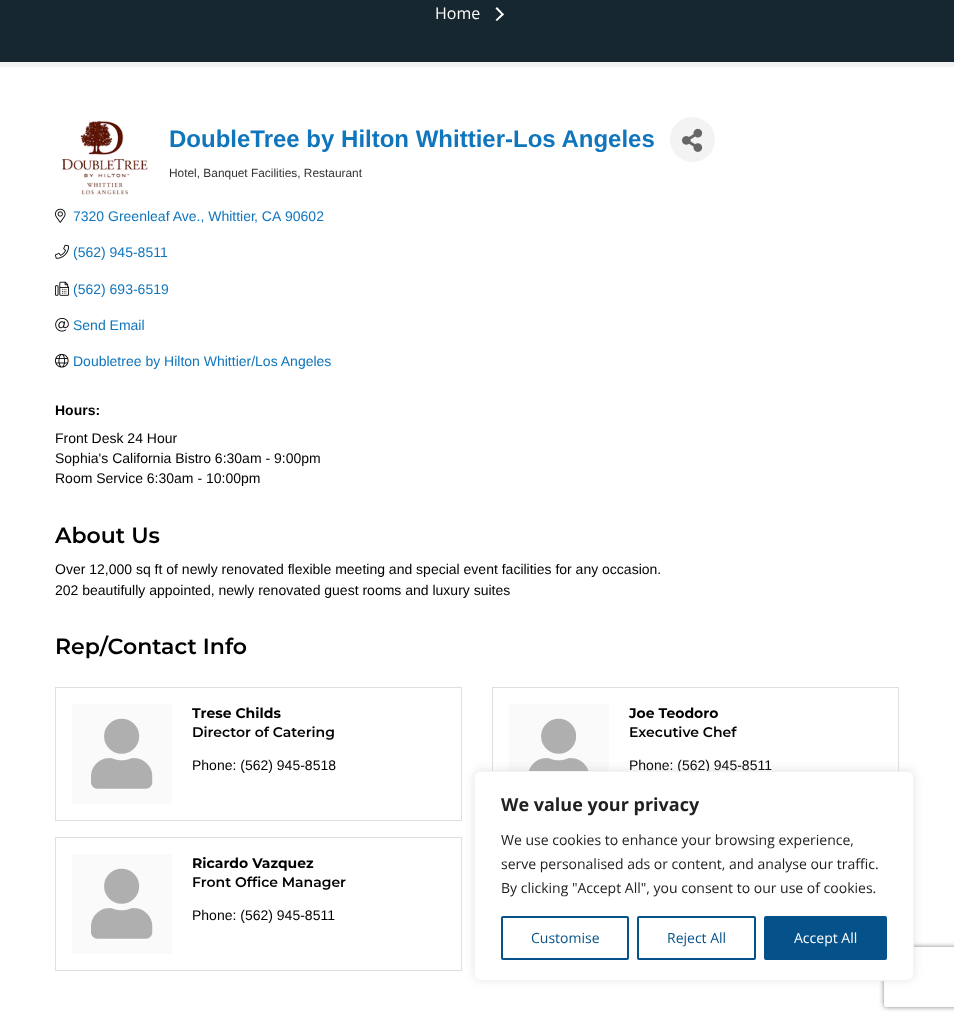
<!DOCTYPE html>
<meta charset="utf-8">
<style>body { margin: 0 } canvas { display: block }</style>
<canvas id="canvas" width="954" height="1021"></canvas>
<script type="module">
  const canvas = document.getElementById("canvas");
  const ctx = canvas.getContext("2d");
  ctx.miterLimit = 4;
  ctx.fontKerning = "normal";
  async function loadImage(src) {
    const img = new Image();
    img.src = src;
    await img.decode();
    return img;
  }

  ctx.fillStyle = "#f2f2f2";
  ctx.fillRect(0, 0, 954, 1021);
  ctx.fillStyle = "#16272f";
  ctx.fillRect(0, 0, 954, 62);
  ctx.font = "16px Open Sans";
  ctx.fillStyle = "#ffffff";
  ctx.fillText("Home", 435, 19);
  ctx.beginPath();
  ctx.moveTo(495.5, 8.5);
  ctx.lineTo(497, 7);
  ctx.lineTo(504, 14.5);
  ctx.lineTo(502.5, 15.5);
  ctx.closePath();
  ctx.fill();
  ctx.beginPath();
  ctx.moveTo(495.5, 20);
  ctx.lineTo(502.5, 13);
  ctx.lineTo(504, 14.5);
  ctx.lineTo(497, 21);
  ctx.closePath();
  ctx.fill();
  ctx.fillRect(0, 67, 954, 954);
  ctx.drawImage(await loadImage("img1.png"), 61, 120, 87, 75);
  ctx.font = "bold 24px Liberation Sans";
  ctx.fillStyle = "#0f75bd";
  ctx.fillText("DoubleTree by Hilton Whittier-Los Angeles", 169, 147);
  ctx.fillStyle = "#f3f3f3";
  ctx.beginPath();
  ctx.arc(692.5, 139.5, 22.5, 0, Math.PI * 2);
  ctx.fill();
  ctx.drawImage(await loadImage("img2.png"), 682, 128, 21, 24);
  ctx.font = "11.9px Liberation Sans";
  ctx.fillStyle = "#333333";
  ctx.fillText("Hotel, Banquet Facilities, Restaurant", 169, 177);
  ctx.drawImage(await loadImage("img3.png"), 55, 208, 11, 15);
  ctx.font = "14px Liberation Sans";
  ctx.fillStyle = "#0f75bd";
  ctx.fillText("7320 Greenleaf Ave., Whittier", 73, 221);
  ctx.fillText(", CA", 254, 221);
  ctx.fillText("90602", 285, 221);
  ctx.drawImage(await loadImage("img4.png"), 55, 244, 14, 15);
  ctx.fillText("(562) 945-8511", 73, 257);
  ctx.drawImage(await loadImage("img5.png"), 55, 281, 14, 15);
  ctx.fillText("(562) 693-6519", 73, 294);
  ctx.drawImage(await loadImage("img6.png"), 55, 318, 14, 14);
  ctx.fillText("Send Email", 73, 330);
  ctx.drawImage(await loadImage("img7.png"), 55, 354, 14, 14);
  ctx.fillText("Doubletree by Hilton Whittier/Los Angeles", 73, 366);
  ctx.font = "bold 14px Liberation Sans";
  ctx.fillStyle = "#000000";
  ctx.fillText("Hours:", 55, 415);
  ctx.font = "14px Liberation Sans";
  ctx.fillText("Front Desk 24 Hour", 55, 443);
  ctx.fillText("Sophia's California Bistro 6:30am - 9:00pm", 55, 463);
  ctx.fillText("Room Service 6:30am - 10:00pm", 55, 483);
  ctx.font = "600 22px Montserrat";
  ctx.fillText("About Us", 55, 543);
  ctx.font = "14px Liberation Sans";
  ctx.fillText("Over 12,000 sq ft of newly renovated flexible meeting and special event facilities for any occasion.", 55, 574);
  ctx.fillText("202 beautifully appointed, newly renovated guest rooms and luxury suites", 55, 595);
  ctx.font = "600 22px Montserrat";
  ctx.fillText("Rep/Contact Info", 55, 654);
  ctx.strokeStyle = "#dfdfdf";
  ctx.strokeRect(55.5, 687.5, 406, 133);
  ctx.fillStyle = "#fafafa";
  ctx.fillRect(72, 704, 100, 100);
  ctx.drawImage(await loadImage("img8.png"), 91, 718, 62, 71);
  ctx.font = "bold 14px Montserrat";
  ctx.fillStyle = "#000000";
  ctx.fillText("Trese Childs", 192, 718);
  ctx.font = "600 14px Montserrat";
  ctx.fillText("Director of Catering", 192, 737);
  ctx.font = "14px Liberation Sans";
  ctx.fillText("Phone: (562) 945-8518", 192, 770);
  ctx.strokeRect(492.5, 687.5, 406, 133);
  ctx.fillStyle = "#fafafa";
  ctx.fillRect(509, 704, 100, 67);
  ctx.drawImage(await loadImage("img9.png"), 529, 718, 60, 53);
  ctx.font = "bold 14px Montserrat";
  ctx.fillStyle = "#000000";
  ctx.fillText("Joe Teodoro", 629, 718);
  ctx.font = "600 14px Montserrat";
  ctx.fillText("Executive Chef", 629, 737);
  ctx.font = "14px Liberation Sans";
  ctx.fillText("Phone: (562) 945-8511", 629, 770);
  ctx.strokeRect(55.5, 837.5, 406, 133);
  ctx.fillStyle = "#fafafa";
  ctx.fillRect(72, 854, 100, 100);
  ctx.drawImage(await loadImage("img8.png"), 91, 868, 62, 71);
  ctx.font = "bold 14px Montserrat";
  ctx.fillStyle = "#000000";
  ctx.fillText("Ricardo Vazquez", 192, 868);
  ctx.font = "600 14px Montserrat";
  ctx.fillText("Front Office Manager", 192, 887);
  ctx.font = "14px Liberation Sans";
  ctx.fillText("Phone: (562) 945-8511", 192, 920);
  ctx.fillStyle = "rgba(172, 171, 171, 0.3)";
  ctx.filter = "blur(5px)";
  ctx.beginPath();
  ctx.roundRect(474, 770, 440, 210, 6);
  ctx.fill();
  ctx.filter = "none";
  ctx.save();
  ctx.beginPath();
  ctx.moveTo(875, 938);
  ctx.lineTo(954, 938);
  ctx.lineTo(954, 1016);
  ctx.lineTo(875, 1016);
  ctx.closePath();
  ctx.moveTo(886, 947);
  ctx.lineTo(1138, 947);
  ctx.bezierCurveTo(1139, 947, 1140, 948, 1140, 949);
  ctx.lineTo(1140, 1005);
  ctx.bezierCurveTo(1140, 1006, 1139, 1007, 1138, 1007);
  ctx.lineTo(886, 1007);
  ctx.bezierCurveTo(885, 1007, 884, 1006, 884, 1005);
  ctx.lineTo(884, 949);
  ctx.bezierCurveTo(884, 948, 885, 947, 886, 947);
  ctx.closePath();
  ctx.clip("evenodd");
  ctx.fillStyle = "#808080";
  ctx.filter = "blur(2.5px)";
  ctx.beginPath();
  ctx.roundRect(884, 947, 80, 60, 2);
  ctx.fill();
  ctx.filter = "none";
  ctx.restore();
  ctx.fillStyle = "#ffffff";
  ctx.beginPath();
  ctx.roundRect(474.5, 771.5, 439, 209, 5.5);
  ctx.fill();
  ctx.strokeStyle = "#f4f4f4";
  ctx.stroke();
  ctx.font = "bold 18px Open Sans";
  ctx.fillStyle = "#212121";
  ctx.fillText("We value your privacy", 501, 811);
  ctx.font = "14px Open Sans";
  ctx.fillText("We use cookies to enhance your browsing experience,", 501, 845);
  ctx.fillText("serve personalised ads or content, and analyse our traffic.", 501, 869);
  ctx.fillText("By clicking \"Accept All\", you consent to our use of cookies.", 501, 893);
  ctx.beginPath();
  ctx.roundRect(502, 917, 126, 42, 1);
  ctx.strokeStyle = "#045289";
  ctx.lineWidth = 2;
  ctx.stroke();
  ctx.fillStyle = "#045289";
  ctx.fillText("Customise", 531, 943);
  ctx.beginPath();
  ctx.roundRect(638, 917, 117, 42, 1);
  ctx.stroke();
  ctx.fillText("Reject All", 667, 943);
  ctx.beginPath();
  ctx.roundRect(765, 917, 121, 42, 1);
  ctx.fill();
  ctx.stroke();
  ctx.fillStyle = "#ffffff";
  ctx.fillText("Accept All", 794, 943);
</script>
